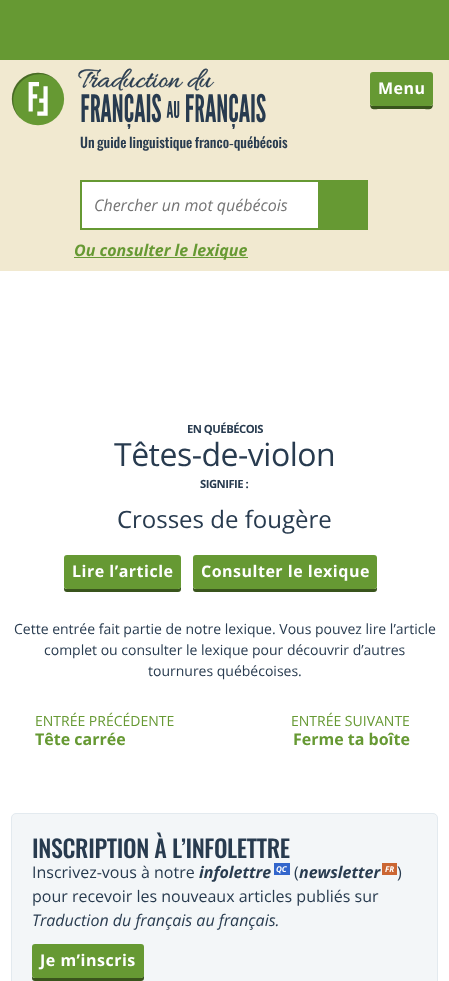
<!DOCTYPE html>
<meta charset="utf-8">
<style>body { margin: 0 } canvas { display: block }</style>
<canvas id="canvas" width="449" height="981"></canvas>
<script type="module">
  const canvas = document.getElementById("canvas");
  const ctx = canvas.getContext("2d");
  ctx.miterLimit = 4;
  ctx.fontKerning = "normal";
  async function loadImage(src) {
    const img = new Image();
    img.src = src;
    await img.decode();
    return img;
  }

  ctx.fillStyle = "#ffffff";
  ctx.fillRect(0, 0, 449, 981);
  ctx.fillStyle = "#669933";
  ctx.fillRect(0, 0, 449, 60);
  ctx.fillStyle = "#f1e9d0";
  ctx.fillRect(0, 60, 449, 211);
  ctx.fillStyle = "#39541c";
  ctx.beginPath();
  ctx.moveTo(370, 103);
  ctx.bezierCurveTo(370, 111, 373, 109, 382, 109);
  ctx.lineTo(420, 109);
  ctx.bezierCurveTo(430, 109, 433, 111, 433, 103);
  ctx.bezierCurveTo(433, 105, 432, 106, 430, 106);
  ctx.lineTo(373, 106);
  ctx.bezierCurveTo(371, 106, 370, 105, 370, 103);
  ctx.closePath();
  ctx.fill();
  ctx.fillStyle = "#669933";
  ctx.beginPath();
  ctx.roundRect(370, 72, 63, 34, 3);
  ctx.fill();
  ctx.letterSpacing = "0.5px";
  ctx.font = "bold 16px Open Sans";
  ctx.fillStyle = "#ffffff";
  ctx.fillText("Menu", 378, 94);
  ctx.drawImage(await loadImage("img1.png"), 11, 68, 255, 61);
  ctx.letterSpacing = "0px";
  ctx.wordSpacing = "-1px";
  ctx.font = "500 14px Oswald";
  ctx.fillStyle = "#283b4f";
  ctx.fillText("Un guide linguistique franco‑québécois", 80, 148);
  ctx.fillStyle = "#ffffff";
  ctx.fillRect(82, 182, 236, 46);
  ctx.strokeStyle = "#669933";
  ctx.lineWidth = 2;
  ctx.strokeRect(81, 181, 286, 48);
  ctx.wordSpacing = "0px";
  ctx.font = "italic 16px Open Sans";
  ctx.fillStyle = "#757575";
  ctx.fillText("Chercher un mot québécois", 94, 211);
  ctx.fillStyle = "#669933";
  ctx.fillRect(318, 182, 48, 46);
  ctx.fillRect(74, 257, 174, 1);
  ctx.font = "italic bold 16px Open Sans";
  ctx.fillText("Ou consulter le lexique", 74, 256);
  ctx.letterSpacing = "-0.5px";
  ctx.font = "bold 11.25px Open Sans";
  ctx.fillStyle = "#283b4f";
  ctx.fillText("EN QUÉBÉCOIS", 187, 433);
  ctx.font = "32px Open Sans";
  ctx.fillText("Têtes-de-violon", 114, 466);
  ctx.font = "bold 11.25px Open Sans";
  ctx.fillText("SIGNIFIE :", 200, 488);
  ctx.letterSpacing = "0px";
  ctx.font = "24px Noto Sans";
  ctx.fillText("C", 117, 528);
  ctx.font = "24px Open Sans";
  ctx.fillText("rosses de fougère", 132, 528);
  ctx.fillStyle = "#39541c";
  ctx.beginPath();
  ctx.moveTo(64, 586);
  ctx.lineTo(64, 589);
  ctx.bezierCurveTo(64, 591, 65, 592, 67, 592);
  ctx.lineTo(178, 592);
  ctx.bezierCurveTo(180, 592, 181, 591, 181, 589);
  ctx.lineTo(181, 586);
  ctx.lineTo(180, 588);
  ctx.lineTo(178, 589);
  ctx.lineTo(67, 589);
  ctx.bezierCurveTo(65, 589, 64, 588, 64, 586);
  ctx.closePath();
  ctx.fill();
  ctx.fillStyle = "#669933";
  ctx.beginPath();
  ctx.roundRect(64, 555, 117, 34, 3);
  ctx.fill();
  ctx.letterSpacing = "0.5px";
  ctx.font = "bold 16px Open Sans";
  ctx.fillStyle = "#ffffff";
  ctx.fillText("Lire l’article", 72, 577);
  ctx.fillStyle = "#39541c";
  ctx.beginPath();
  ctx.moveTo(193, 586);
  ctx.lineTo(193, 589);
  ctx.bezierCurveTo(193, 591, 194, 592, 196, 592);
  ctx.lineTo(374, 592);
  ctx.bezierCurveTo(376, 592, 377, 591, 377, 589);
  ctx.lineTo(377, 586);
  ctx.bezierCurveTo(377, 588, 376, 589, 374, 589);
  ctx.lineTo(196, 589);
  ctx.bezierCurveTo(194, 589, 193, 588, 193, 586);
  ctx.closePath();
  ctx.fill();
  ctx.fillStyle = "#669933";
  ctx.beginPath();
  ctx.roundRect(193, 555, 184, 34, 3);
  ctx.fill();
  ctx.fillStyle = "#ffffff";
  ctx.fillText("Consulter le lexique", 201, 577);
  ctx.letterSpacing = "0px";
  ctx.font = "14px Open Sans";
  ctx.fillStyle = "#283b4f";
  ctx.fillText("Cette entrée fait partie de notre lexique. Vous pouvez lire l’article", 14, 634);
  ctx.fillText("complet ou consulter le lexique pour découvrir d’autres", 44, 655);
  ctx.fillText("tournures québécoises.", 148, 676);
  ctx.fillStyle = "#669933";
  ctx.fillText("ENTRÉE PRÉCÉDENTE", 35, 726);
  ctx.font = "bold 16px Open Sans";
  ctx.fillText("Tête carrée", 35, 745);
  ctx.font = "14px Open Sans";
  ctx.fillText("ENTRÉE SUIVANTE", 291, 726);
  ctx.font = "bold 16px Open Sans";
  ctx.fillText("Ferme ta boîte", 293, 745);
  ctx.fillStyle = "#f3f6f8";
  ctx.beginPath();
  ctx.roundRect(11.5, 813.5, 426, 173, 4.5);
  ctx.fill();
  ctx.strokeStyle = "#e3eaef";
  ctx.lineWidth = 1;
  ctx.stroke();
  ctx.letterSpacing = "-0.35px";
  ctx.font = "500 24px Oswald";
  ctx.fillStyle = "#283b4f";
  ctx.fillText("INSCRIPTION À L’INFOLETTRE", 32, 858);
  ctx.letterSpacing = "0px";
  ctx.font = "16px Open Sans";
  ctx.fillText("Inscrivez-vous à notre", 32, 878);
  ctx.font = "italic bold 16px Open Sans";
  ctx.fillText("infolettre", 199, 878);
  ctx.fillStyle = "#3366cc";
  ctx.fillRect(274, 863, 16, 12);
  ctx.font = "italic bold 8px Open Sans";
  ctx.fillStyle = "#ffffff";
  ctx.fillText("QC", 276, 872);
  ctx.font = "16px Open Sans";
  ctx.fillStyle = "#283b4f";
  ctx.fillText("(", 294, 878);
  ctx.font = "italic bold 16px Open Sans";
  ctx.fillText("newsletter", 299, 878);
  ctx.fillStyle = "#cb6633";
  ctx.fillRect(382, 863, 15, 12);
  ctx.font = "italic bold 8px Open Sans";
  ctx.fillStyle = "#ffffff";
  ctx.fillText("FR", 385, 872);
  ctx.font = "16px Open Sans";
  ctx.fillStyle = "#283b4f";
  ctx.fillText(")", 397, 878);
  ctx.fillText("pour recevoir les nouveaux articles publiés sur", 32, 902);
  ctx.font = "italic 16px Open Sans";
  ctx.fillText("Traduction du français au français.", 32, 926);
  ctx.fillStyle = "#39541c";
  ctx.beginPath();
  ctx.moveTo(32, 975);
  ctx.lineTo(32, 978);
  ctx.bezierCurveTo(32, 980, 33, 981, 35, 981);
  ctx.lineTo(141, 981);
  ctx.bezierCurveTo(143, 981, 144, 980, 144, 978);
  ctx.lineTo(144, 975);
  ctx.lineTo(143, 977);
  ctx.lineTo(141, 978);
  ctx.lineTo(35, 978);
  ctx.bezierCurveTo(33, 978, 32, 977, 32, 975);
  ctx.closePath();
  ctx.fill();
  ctx.fillStyle = "#669933";
  ctx.beginPath();
  ctx.roundRect(32, 944, 112, 34, 3);
  ctx.fill();
  ctx.letterSpacing = "0.5px";
  ctx.font = "bold 16px Open Sans";
  ctx.fillStyle = "#ffffff";
  ctx.fillText("Je m’inscris", 40, 966);
</script>
